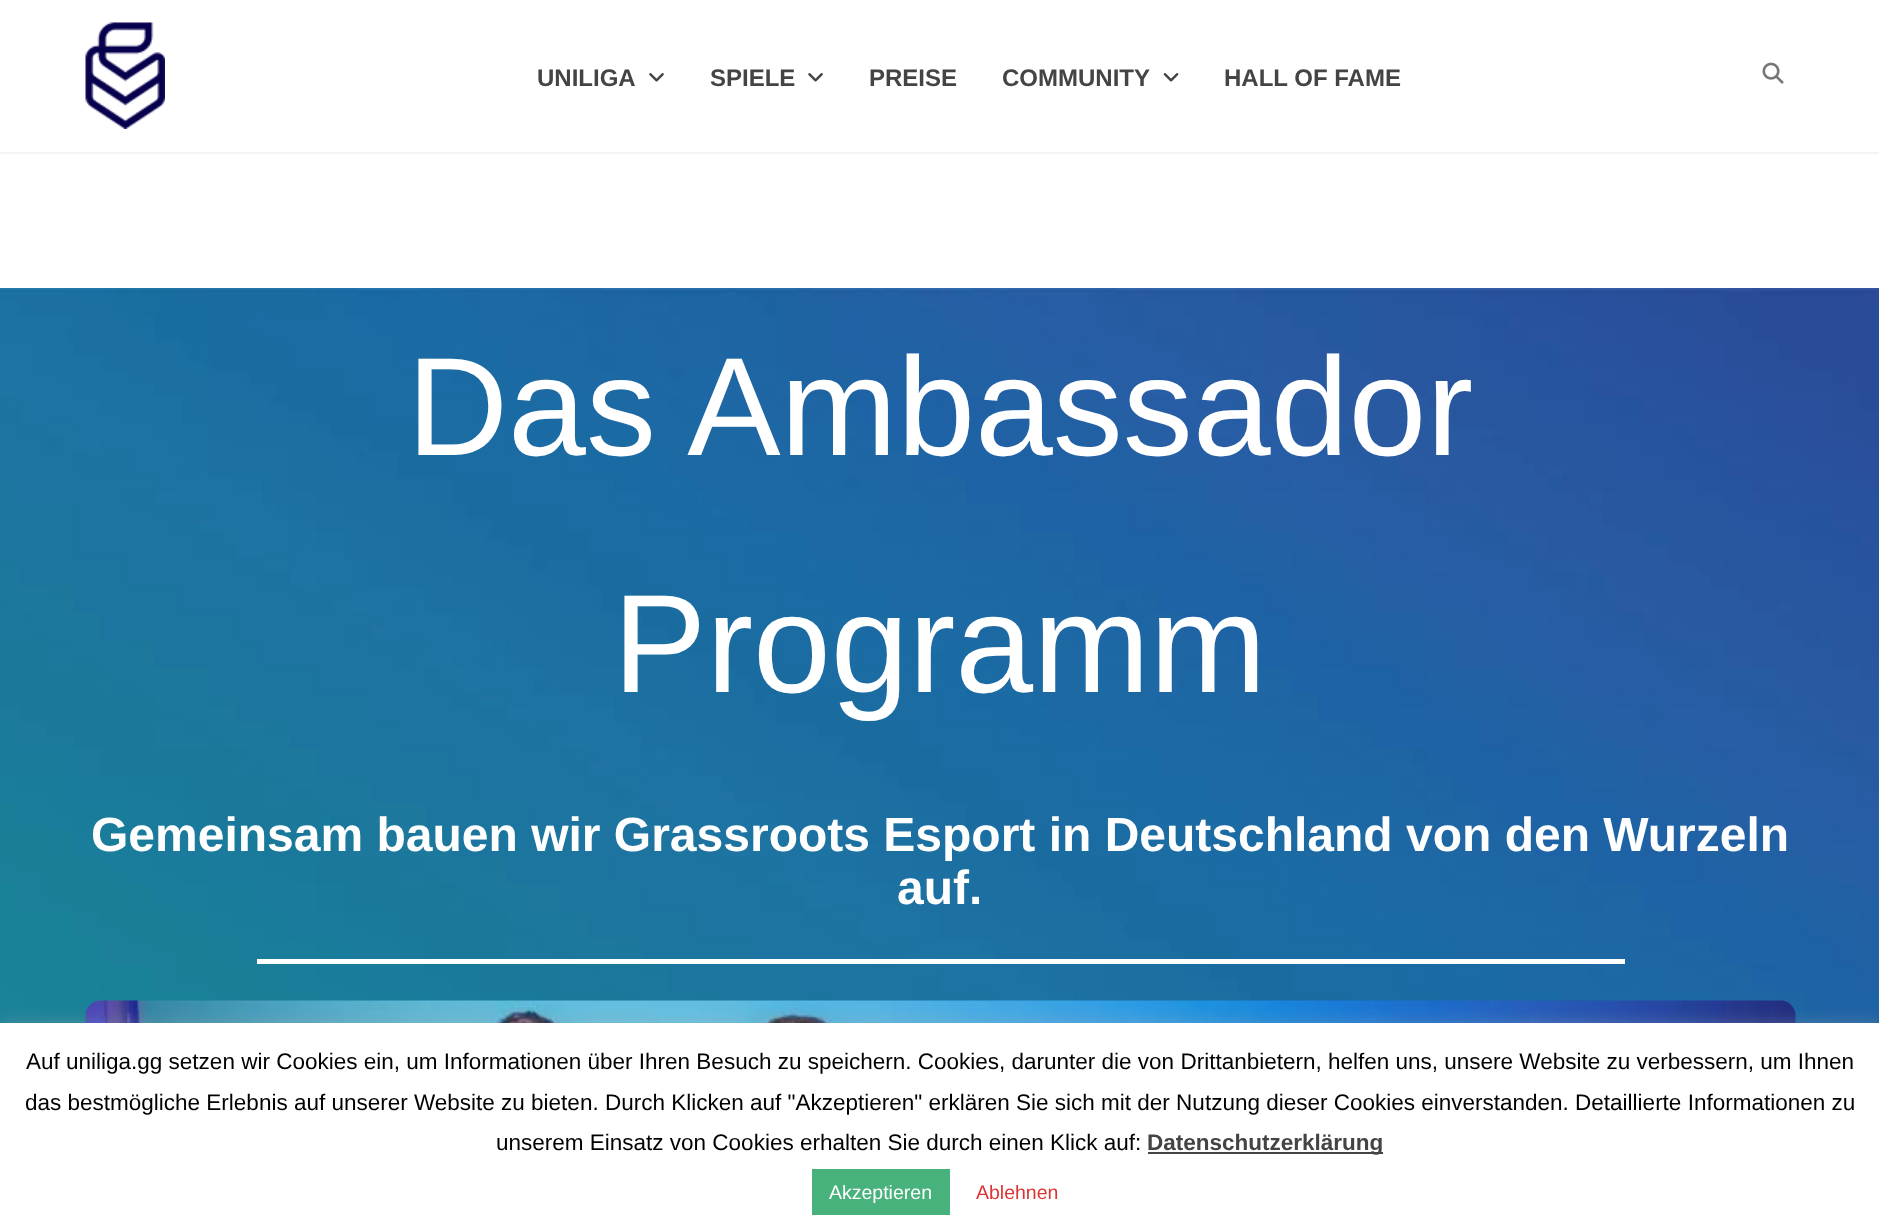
<!DOCTYPE html>
<meta charset="utf-8">
<style>body { margin: 0 } canvas { display: block }</style>
<canvas id="canvas" width="1879" height="1232"></canvas>
<script type="module">
  const canvas = document.getElementById("canvas");
  const ctx = canvas.getContext("2d");
  ctx.miterLimit = 4;
  ctx.fontKerning = "normal";
  async function loadImage(src) {
    const img = new Image();
    img.src = src;
    await img.decode();
    return img;
  }

  ctx.fillStyle = "#ffffff";
  ctx.fillRect(0, 0, 1879, 1232);
  ctx.fillStyle = "#f3f3f3";
  ctx.fillRect(0, 152, 1879, 2);
  ctx.drawImage(await loadImage("img1.png"), 85, 22, 80, 107);
  ctx.font = "bold 24px Liberation Sans";
  ctx.fillStyle = "#444444";
  ctx.fillText("UNILIGA", 537, 86);
  ctx.drawImage(await loadImage("img2.png"), 649, 73, 15, 9);
  ctx.fillText("SPIELE", 710, 86);
  ctx.drawImage(await loadImage("img2.png"), 808, 73, 15, 9);
  ctx.fillText("PREISE", 869, 86);
  ctx.fillText("COMMUNITY", 1002, 86);
  ctx.drawImage(await loadImage("img3.png"), 1163, 73, 16, 9);
  ctx.fillText("HALL OF FAME", 1224, 86);
  ctx.drawImage(await loadImage("img4.png"), 1762, 62, 22, 22);
  ctx.drawImage(await loadImage("img5.png"), 0, 288, 1879, 735);
  ctx.font = "140px Liberation Sans";
  ctx.fillStyle = "#ffffff";
  ctx.fillText("Das Ambassador", 407, 455);
  ctx.fillText("Programm", 613, 692);
  ctx.font = "bold 48px Liberation Sans";
  ctx.fillText("Gemeinsam bauen wir Grassroots Esport in Deutschland von den Wurzeln", 91, 851);
  ctx.fillText("auf.", 897, 904);
  ctx.fillRect(257, 959, 1368, 5);
  ctx.drawImage(await loadImage("img6.png"), 85, 1000, 1711, 23);
  ctx.fillStyle = "rgba(172, 171, 171, 0.3)";
  ctx.filter = "blur(7.5px)";
  ctx.beginPath();
  ctx.rect(0, 1022, 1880, 210);
  ctx.fill();
  ctx.filter = "none";
  ctx.fillStyle = "#ffffff";
  ctx.fillRect(0, 1023, 1879, 209);
  ctx.font = "22.5px Liberation Sans";
  ctx.fillStyle = "#000000";
  ctx.fillText("Auf uniliga.gg setzen wir Cookies ein, um Informationen über Ihren Besuch zu speichern. Cookies, darunter die von Drittanbietern, helfen uns, unsere Website zu verbessern, um Ihnen", 26, 1069);
  ctx.fillText("das bestmögliche Erlebnis auf unserer Website zu bieten. Durch Klicken auf \"Akzeptieren\" erklären Sie sich mit der Nutzung dieser Cookies einverstanden. Detaillierte Informationen zu", 25, 1110);
  ctx.fillText("unserem Einsatz von Cookies erhalten Sie durch einen Klick auf:", 496, 1150);
  ctx.fillStyle = "#444444";
  ctx.fillRect(1148, 1152, 235, 2);
  ctx.font = "bold 22.5px Liberation Sans";
  ctx.fillText("Datenschutzerklärung", 1147, 1150);
  ctx.fillStyle = "#47b27c";
  ctx.fillRect(812, 1169, 138, 46);
  ctx.font = "19.5px Liberation Sans";
  ctx.fillStyle = "#ffffff";
  ctx.fillText("Akzeptieren", 829, 1199);
  ctx.fillStyle = "#dd3333";
  ctx.fillText("Ablehnen", 976, 1199);
</script>
